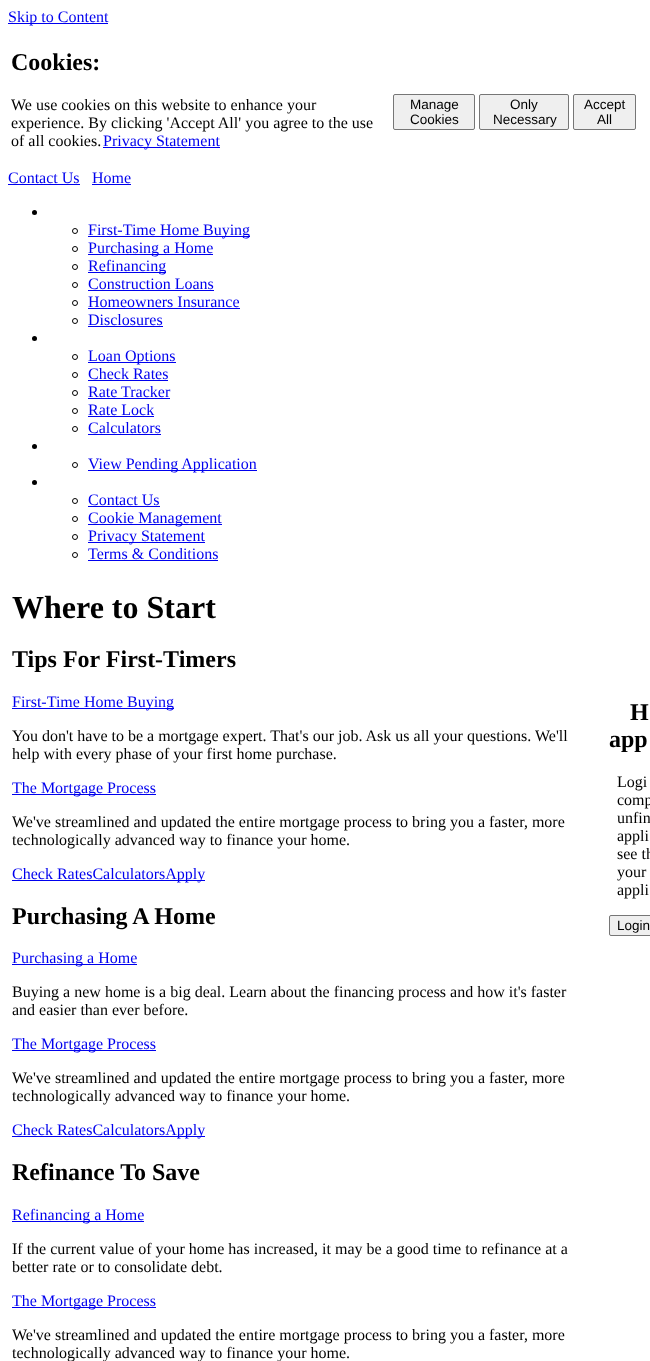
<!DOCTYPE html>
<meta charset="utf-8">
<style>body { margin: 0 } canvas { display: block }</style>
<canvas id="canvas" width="650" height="1361"></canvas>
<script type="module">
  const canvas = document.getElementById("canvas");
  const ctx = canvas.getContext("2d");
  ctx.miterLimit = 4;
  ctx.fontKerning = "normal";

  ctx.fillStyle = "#ffffff";
  ctx.fillRect(0, 0, 650, 1361);
  ctx.fillStyle = "#0000ee";
  ctx.fillRect(8, 23, 100, 1);
  ctx.font = "16px Liberation Serif";
  ctx.fillText("Skip to Content", 8, 22);
  ctx.font = "bold 24px Liberation Serif";
  ctx.fillStyle = "#000000";
  ctx.fillText("Cookies:", 11, 70);
  ctx.font = "16px Liberation Serif";
  ctx.fillText("We use cookies on this website to enhance your", 11, 110);
  ctx.fillText("experience. By clicking 'Accept All' you agree to the use", 11, 128);
  ctx.fillText("of all cookies.", 11, 146);
  ctx.fillStyle = "#0000ee";
  ctx.fillRect(103, 147, 117, 1);
  ctx.fillText("Privacy Statement", 103, 146);
  ctx.fillStyle = "#efefef";
  ctx.beginPath();
  ctx.roundRect(393.5, 94.5, 81, 35, 1.5);
  ctx.fill();
  ctx.strokeStyle = "#767676";
  ctx.stroke();
  ctx.font = "13.5px Liberation Sans";
  ctx.fillStyle = "#000000";
  ctx.fillText("Manage", 410, 109);
  ctx.fillText("Cookies", 410, 124);
  ctx.fillStyle = "#efefef";
  ctx.beginPath();
  ctx.roundRect(479.5, 94.5, 89, 35, 1.5);
  ctx.fill();
  ctx.stroke();
  ctx.fillStyle = "#000000";
  ctx.fillText("Only", 510, 109);
  ctx.fillText("Necessary", 493, 124);
  ctx.fillStyle = "#efefef";
  ctx.beginPath();
  ctx.roundRect(573.5, 94.5, 62, 35, 1.5);
  ctx.fill();
  ctx.stroke();
  ctx.fillStyle = "#000000";
  ctx.fillText("Accept", 584, 109);
  ctx.fillText("All", 597, 124);
  ctx.font = "16px Liberation Serif";
  ctx.fillStyle = "#0000ee";
  ctx.fillText("Contact Us", 8, 183);
  ctx.fillRect(8, 184, 72, 1);
  ctx.fillText("Home", 92, 183);
  ctx.fillRect(92, 184, 39, 1);
  ctx.fillStyle = "#000000";
  ctx.beginPath();
  ctx.arc(34.5, 212.5, 2.5, 0, Math.PI * 2);
  ctx.fill();
  ctx.beginPath();
  ctx.arc(75, 231, 2.5, 0, Math.PI * 2);
  ctx.strokeStyle = "#000000";
  ctx.stroke();
  ctx.fillStyle = "#0000ee";
  ctx.fillRect(88, 236, 162, 1);
  ctx.fillText("First-Time Home Buying", 88, 235);
  ctx.beginPath();
  ctx.arc(75, 249, 2.5, 0, Math.PI * 2);
  ctx.stroke();
  ctx.fillRect(88, 254, 125, 1);
  ctx.fillText("Purchasing a Home", 88, 253);
  ctx.beginPath();
  ctx.arc(75, 267, 2.5, 0, Math.PI * 2);
  ctx.stroke();
  ctx.fillRect(88, 272, 78, 1);
  ctx.fillText("Refinancing", 88, 271);
  ctx.beginPath();
  ctx.arc(75, 285, 2.5, 0, Math.PI * 2);
  ctx.stroke();
  ctx.fillText("Construction Loans", 88, 289);
  ctx.fillRect(88, 290, 126, 1);
  ctx.beginPath();
  ctx.arc(75, 303, 2.5, 0, Math.PI * 2);
  ctx.stroke();
  ctx.fillText("Homeowners Insurance", 88, 307);
  ctx.fillRect(88, 308, 152, 1);
  ctx.beginPath();
  ctx.arc(75, 321, 2.5, 0, Math.PI * 2);
  ctx.stroke();
  ctx.fillText("Disclosures", 88, 325);
  ctx.fillRect(88, 326, 75, 1);
  ctx.fillStyle = "#000000";
  ctx.beginPath();
  ctx.arc(34.5, 338.5, 2.5, 0, Math.PI * 2);
  ctx.fill();
  ctx.beginPath();
  ctx.arc(75, 357, 2.5, 0, Math.PI * 2);
  ctx.stroke();
  ctx.fillStyle = "#0000ee";
  ctx.fillRect(88, 362, 88, 1);
  ctx.fillText("Loan Options", 88, 361);
  ctx.beginPath();
  ctx.arc(75, 375, 2.5, 0, Math.PI * 2);
  ctx.stroke();
  ctx.fillText("Check Rates", 88, 379);
  ctx.fillRect(88, 380, 80, 1);
  ctx.beginPath();
  ctx.arc(75, 393, 2.5, 0, Math.PI * 2);
  ctx.stroke();
  ctx.fillText("Rate Tracker", 88, 397);
  ctx.fillRect(88, 398, 82, 1);
  ctx.beginPath();
  ctx.arc(75, 411, 2.5, 0, Math.PI * 2);
  ctx.stroke();
  ctx.fillText("Rate Lock", 88, 415);
  ctx.fillRect(88, 416, 66, 1);
  ctx.beginPath();
  ctx.arc(75, 429, 2.5, 0, Math.PI * 2);
  ctx.stroke();
  ctx.fillText("Calculators", 88, 433);
  ctx.fillRect(88, 434, 73, 1);
  ctx.fillStyle = "#000000";
  ctx.beginPath();
  ctx.arc(34.5, 446.5, 2.5, 0, Math.PI * 2);
  ctx.fill();
  ctx.beginPath();
  ctx.arc(75, 465, 2.5, 0, Math.PI * 2);
  ctx.stroke();
  ctx.fillStyle = "#0000ee";
  ctx.fillRect(88, 470, 169, 1);
  ctx.fillText("View Pending Application", 88, 469);
  ctx.fillStyle = "#000000";
  ctx.beginPath();
  ctx.arc(34.5, 482.5, 2.5, 0, Math.PI * 2);
  ctx.fill();
  ctx.beginPath();
  ctx.arc(75, 501, 2.5, 0, Math.PI * 2);
  ctx.stroke();
  ctx.fillStyle = "#0000ee";
  ctx.fillText("Contact Us", 88, 505);
  ctx.fillRect(88, 506, 72, 1);
  ctx.beginPath();
  ctx.arc(75, 519, 2.5, 0, Math.PI * 2);
  ctx.stroke();
  ctx.fillRect(88, 524, 134, 1);
  ctx.fillText("Cookie Management", 88, 523);
  ctx.beginPath();
  ctx.arc(75, 537, 2.5, 0, Math.PI * 2);
  ctx.stroke();
  ctx.fillRect(88, 542, 117, 1);
  ctx.fillText("Privacy Statement", 88, 541);
  ctx.beginPath();
  ctx.arc(75, 555, 2.5, 0, Math.PI * 2);
  ctx.stroke();
  ctx.fillText("Terms & Conditions", 88, 559);
  ctx.fillRect(88, 560, 130, 1);
  ctx.font = "bold 32px Liberation Serif";
  ctx.fillStyle = "#000000";
  ctx.fillText("Where to Start", 12, 618);
  ctx.font = "bold 24px Liberation Serif";
  ctx.fillText("Tips For First-Timers", 12, 667);
  ctx.fillStyle = "#0000ee";
  ctx.fillRect(12, 708, 162, 1);
  ctx.font = "16px Liberation Serif";
  ctx.fillText("First-Time Home Buying", 12, 707);
  ctx.fillStyle = "#000000";
  ctx.fillText("You don't have to be a mortgage expert. That's our job. Ask us all your questions. We'll", 12, 741);
  ctx.fillText("help with every phase of your first home purchase.", 12, 759);
  ctx.fillStyle = "#0000ee";
  ctx.fillRect(12, 794, 144, 1);
  ctx.fillText("The Mortgage Process", 12, 793);
  ctx.fillStyle = "#000000";
  ctx.fillText("We've streamlined and updated the entire mortgage process to bring you a faster, more", 12, 827);
  ctx.fillText("technologically advanced way to finance your home.", 12, 845);
  ctx.fillStyle = "#0000ee";
  ctx.fillRect(12, 880, 193, 1);
  ctx.fillText("Check RatesCalculatorsApply", 12, 879);
  ctx.font = "bold 24px Liberation Serif";
  ctx.fillStyle = "#000000";
  ctx.fillText("Purchasing A Home", 12, 924);
  ctx.fillStyle = "#0000ee";
  ctx.fillRect(12, 964, 125, 1);
  ctx.font = "16px Liberation Serif";
  ctx.fillText("Purchasing a Home", 12, 963);
  ctx.fillStyle = "#000000";
  ctx.fillText("Buying a new home is a big deal. Learn about the financing process and how it's faster", 12, 997);
  ctx.fillText("and easier than ever before.", 12, 1015);
  ctx.fillStyle = "#0000ee";
  ctx.fillRect(12, 1050, 144, 1);
  ctx.fillText("The Mortgage Process", 12, 1049);
  ctx.fillStyle = "#000000";
  ctx.fillText("We've streamlined and updated the entire mortgage process to bring you a faster, more", 12, 1083);
  ctx.fillText("technologically advanced way to finance your home.", 12, 1101);
  ctx.fillStyle = "#0000ee";
  ctx.fillRect(12, 1136, 193, 1);
  ctx.fillText("Check RatesCalculatorsApply", 12, 1135);
  ctx.font = "bold 24px Liberation Serif";
  ctx.fillStyle = "#000000";
  ctx.fillText("Refinance To Save", 12, 1180);
  ctx.fillStyle = "#0000ee";
  ctx.fillRect(12, 1221, 132, 1);
  ctx.font = "16px Liberation Serif";
  ctx.fillText("Refinancing a Home", 12, 1220);
  ctx.fillStyle = "#000000";
  ctx.fillText("If the current value of your home has increased, it may be a good time to refinance at a", 12, 1254);
  ctx.fillText("better rate or to consolidate debt.", 12, 1272);
  ctx.fillStyle = "#0000ee";
  ctx.fillRect(12, 1307, 144, 1);
  ctx.fillText("The Mortgage Process", 12, 1306);
  ctx.fillStyle = "#000000";
  ctx.fillText("We've streamlined and updated the entire mortgage process to bring you a faster, more", 12, 1340);
  ctx.fillText("technologically advanced way to finance your home.", 12, 1358);
  ctx.font = "bold 24px Liberation Serif";
  ctx.fillText("H", 630, 720);
  ctx.fillText("app", 609, 747);
  ctx.font = "16px Liberation Serif";
  ctx.fillText("Logi", 617, 787);
  ctx.fillText("comp", 617, 805);
  ctx.fillText("unfin", 617, 823);
  ctx.fillText("appli", 617, 841);
  ctx.fillText("see th", 617, 859);
  ctx.fillText("your", 617, 877);
  ctx.fillText("appli", 617, 895);
  ctx.fillStyle = "#efefef";
  ctx.beginPath();
  ctx.roundRect(609.5, 915.5, 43, 20, 1.5);
  ctx.fill();
  ctx.strokeStyle = "#767676";
  ctx.stroke();
  ctx.font = "13.5px Liberation Sans";
  ctx.fillStyle = "#000000";
  ctx.fillText("Login", 617, 930);
</script>
